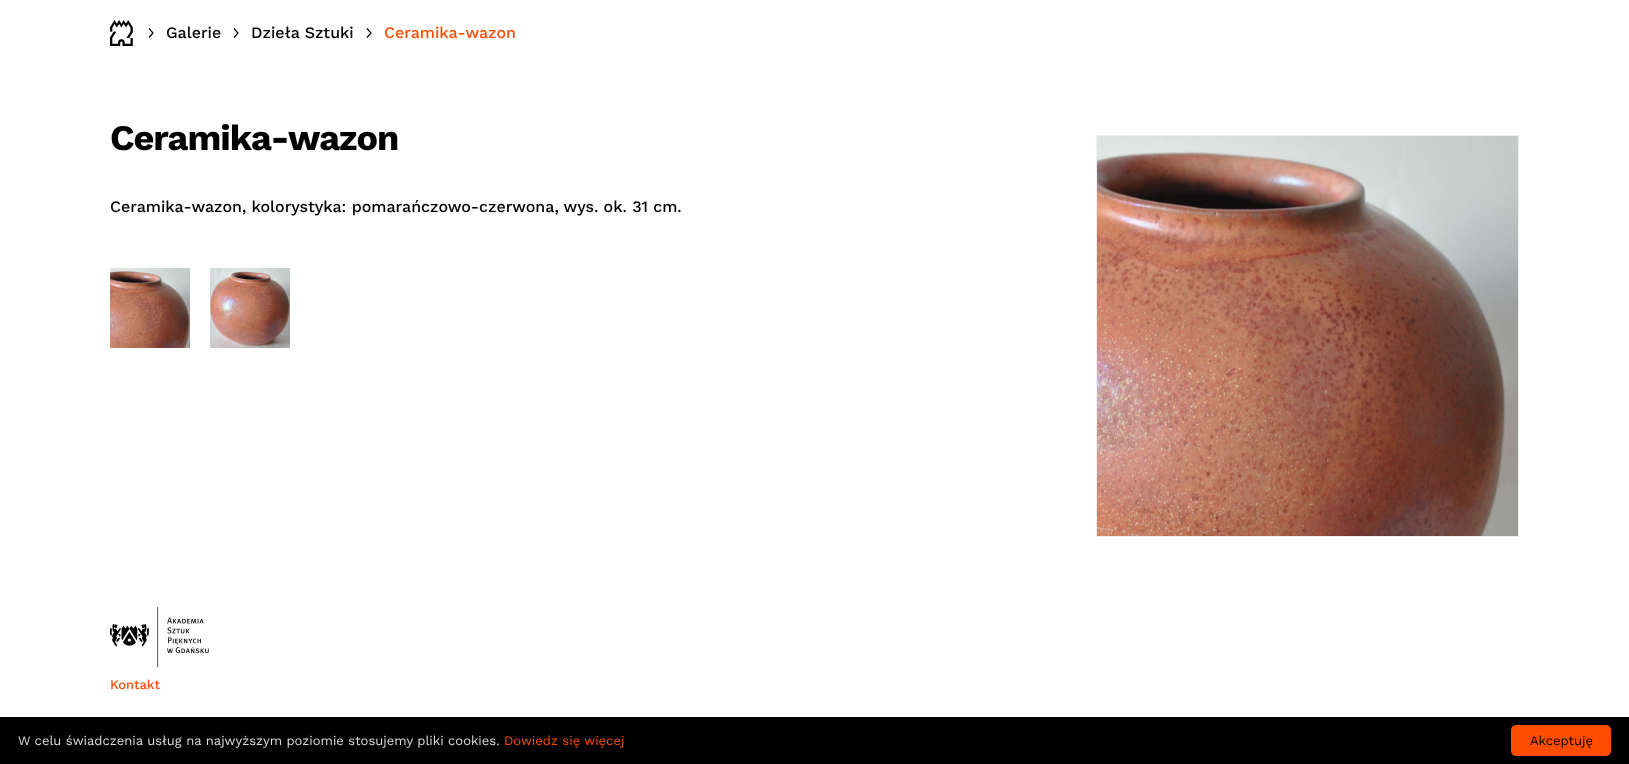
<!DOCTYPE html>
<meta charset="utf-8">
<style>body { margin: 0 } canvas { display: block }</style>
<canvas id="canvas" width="1629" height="764"></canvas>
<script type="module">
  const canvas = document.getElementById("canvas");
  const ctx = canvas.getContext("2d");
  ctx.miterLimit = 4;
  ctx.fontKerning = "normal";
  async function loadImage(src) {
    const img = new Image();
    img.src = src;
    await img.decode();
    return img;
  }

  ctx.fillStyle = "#ffffff";
  ctx.fillRect(0, 0, 1629, 764);
  ctx.drawImage(await loadImage("img1.png"), 110, 20, 23, 26);
  ctx.beginPath();
  ctx.moveTo(149, 28.5);
  ctx.lineTo(153, 33);
  ctx.lineTo(149, 37.5);
  ctx.strokeStyle = "#000000";
  ctx.lineWidth = 1.2;
  ctx.stroke();
  ctx.font = "500 16px Work Sans";
  ctx.fillStyle = "#000000";
  ctx.fillText("Galerie", 166, 38);
  ctx.beginPath();
  ctx.moveTo(234, 28.5);
  ctx.lineTo(238, 33);
  ctx.lineTo(234, 37.5);
  ctx.stroke();
  ctx.fillText("Dzieła Sztuki", 251, 38);
  ctx.beginPath();
  ctx.moveTo(367, 28.5);
  ctx.lineTo(371, 33);
  ctx.lineTo(367, 37.5);
  ctx.stroke();
  ctx.fillStyle = "#fe4d00";
  ctx.fillText("Ceramika-wazon", 384, 38);
  ctx.letterSpacing = "-1px";
  ctx.font = "bold 36px Work Sans";
  ctx.fillStyle = "#000000";
  ctx.fillText("Ceramika-wazon", 110, 150);
  ctx.letterSpacing = "0px";
  ctx.font = "500 16px Work Sans";
  ctx.fillText("Ceramika-wazon, kolorystyka: pomarańczowo-czerwona, wys. ok. 31 cm.", 110, 212);
  ctx.drawImage(await loadImage("img2.png"), 110, 268, 80, 80);
  ctx.drawImage(await loadImage("img3.png"), 210, 268, 80, 80);
  ctx.fillStyle = "#efefef";
  ctx.fillRect(1096, 135, 423, 402);
  ctx.drawImage(await loadImage("img4.png"), 1097, 136, 421, 400);
  ctx.drawImage(await loadImage("img5.png"), 110, 607, 99, 60);
  ctx.font = "500 13px Work Sans";
  ctx.fillStyle = "#fe4d00";
  ctx.fillText("Kontakt", 110, 689);
  ctx.fillStyle = "#000000";
  ctx.fillRect(0, 717, 1629, 47);
  ctx.font = "13px Work Sans";
  ctx.fillStyle = "#dddddd";
  ctx.fillText("W celu świadczenia usług na najwyższym poziomie stosujemy pliki cookies.", 18, 745);
  ctx.fillStyle = "#fe4d00";
  ctx.fillText("Dowiedz się więcej", 504, 745);
  ctx.beginPath();
  ctx.roundRect(1511, 725, 100, 31, 5);
  ctx.fill();
  ctx.fillStyle = "#000000";
  ctx.fillText("Akceptuję", 1530, 745);
</script>
